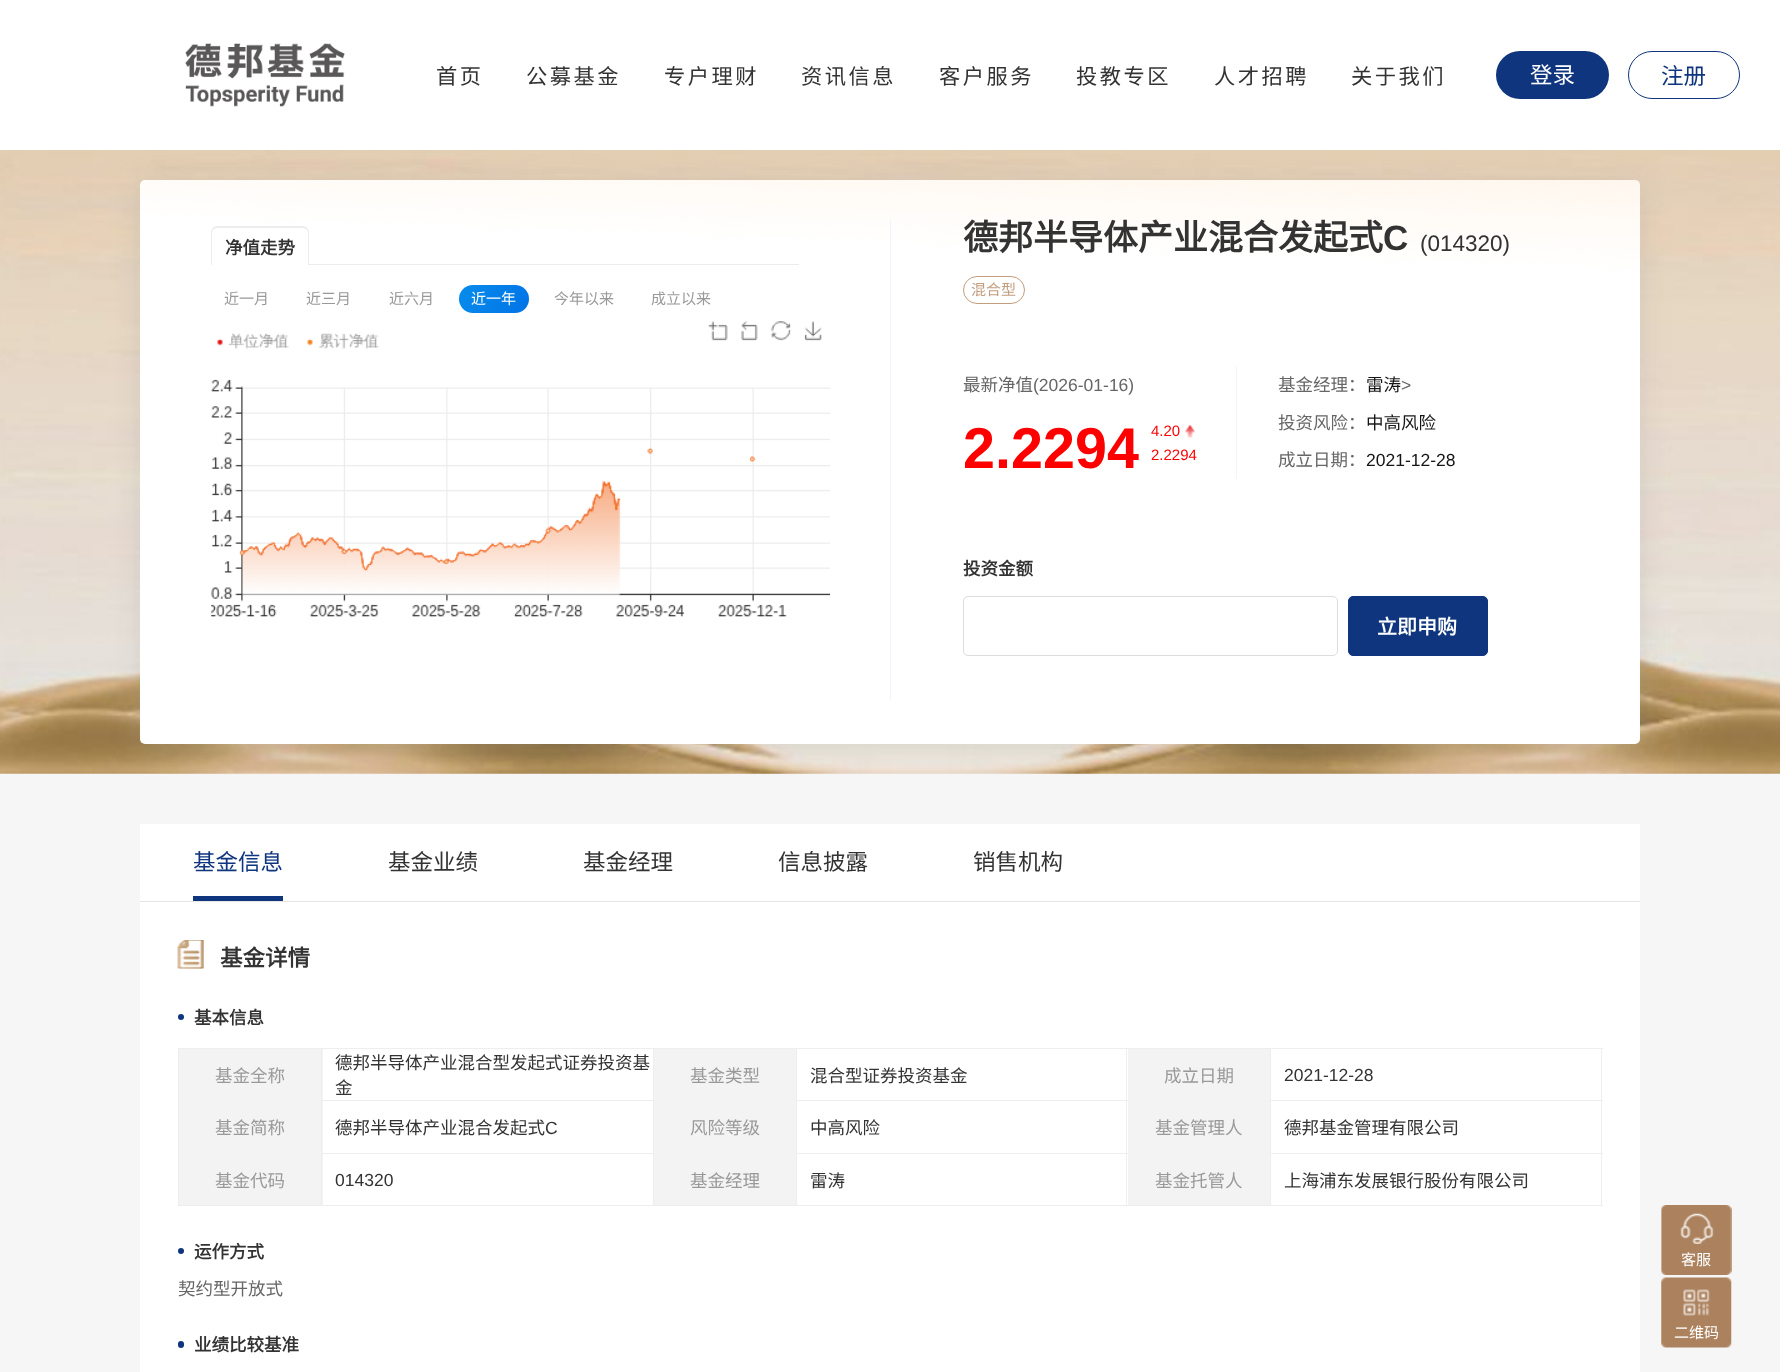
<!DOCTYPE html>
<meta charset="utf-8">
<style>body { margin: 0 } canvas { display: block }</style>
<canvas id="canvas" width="1780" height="1372"></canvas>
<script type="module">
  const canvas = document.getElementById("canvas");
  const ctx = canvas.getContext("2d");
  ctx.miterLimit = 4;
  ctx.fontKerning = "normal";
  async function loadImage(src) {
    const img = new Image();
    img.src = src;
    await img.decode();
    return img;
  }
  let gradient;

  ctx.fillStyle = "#ffffff";
  ctx.fillRect(0, 0, 1780, 1372);
  ctx.drawImage(await loadImage("img1.png"), 185, 43, 160, 64);
  ctx.letterSpacing = "2.5px";
  ctx.font = "21.25px Noto Sans CJK SC";
  ctx.fillStyle = "#333333";
  ctx.fillText("首页", 436, 84);
  ctx.fillText("公募基金", 526, 84);
  ctx.fillText("专户理财", 664, 84);
  ctx.fillText("资讯信息", 801, 84);
  ctx.fillText("客户服务", 939, 84);
  ctx.fillText("投教专区", 1076, 84);
  ctx.fillText("人才招聘", 1214, 84);
  ctx.fillText("关于我们", 1351, 84);
  ctx.fillStyle = "#0f357e";
  ctx.beginPath();
  ctx.roundRect(1496, 51, 113, 48, 24);
  ctx.fill();
  ctx.letterSpacing = "0px";
  ctx.font = "22.5px Noto Sans CJK SC";
  ctx.fillStyle = "#ffffff";
  ctx.fillText("登录", 1530, 83);
  ctx.beginPath();
  ctx.roundRect(1628.5, 51.5, 111, 47, 23.5);
  ctx.strokeStyle = "#0f357e";
  ctx.stroke();
  ctx.fillStyle = "#0f357e";
  ctx.fillText("注册", 1661, 84);
  ctx.fillStyle = "#f6f6f6";
  ctx.fillRect(0, 773, 1780, 599);
  ctx.drawImage(await loadImage("img2.png"), 0, 150, 1780, 624);
  ctx.fillStyle = "rgba(153, 153, 153, 0.28)";
  ctx.filter = "blur(14px)";
  ctx.beginPath();
  ctx.roundRect(140, 185, 1500, 564, 5);
  ctx.fill();
  ctx.filter = "none";
  gradient = ctx.createLinearGradient(901, 154, 879, 770);
  gradient.addColorStop(0, "#fff7ee");
  gradient.addColorStop(0.15, "#ffffff");
  ctx.fillStyle = gradient;
  ctx.beginPath();
  ctx.roundRect(140, 180, 1500, 564, 5);
  ctx.fill();
  ctx.fillStyle = "#ececec";
  ctx.fillRect(309, 264, 490, 1);
  ctx.beginPath();
  ctx.moveTo(218, 226);
  ctx.lineTo(302, 226);
  ctx.bezierCurveTo(306, 226, 309, 229, 309, 232);
  ctx.lineTo(309, 265);
  ctx.lineTo(211, 265);
  ctx.lineTo(211, 232);
  ctx.bezierCurveTo(211, 229, 214, 226, 218, 226);
  ctx.closePath();
  ctx.moveTo(218, 228);
  ctx.lineTo(302, 228);
  ctx.bezierCurveTo(305, 228, 308, 230, 308, 232);
  ctx.lineTo(308, 265);
  ctx.lineTo(212, 265);
  ctx.lineTo(212, 232);
  ctx.bezierCurveTo(212, 230, 215, 228, 218, 228);
  ctx.closePath();
  ctx.fill("evenodd");
  ctx.font = "bold 17.5px Noto Sans CJK SC";
  ctx.fillStyle = "#333333";
  ctx.fillText("净值走势", 225, 254);
  ctx.font = "15px Noto Sans CJK SC";
  ctx.fillStyle = "#999999";
  ctx.fillText("近一月", 224, 304);
  ctx.fillText("近三月", 306, 304);
  ctx.fillText("近六月", 389, 304);
  gradient = ctx.createLinearGradient(460, 282, 527, 315);
  gradient.addColorStop(0, "#088cec");
  gradient.addColorStop(1, "#0074e6");
  ctx.fillStyle = gradient;
  ctx.beginPath();
  ctx.roundRect(459, 285, 70, 28, 14);
  ctx.fill();
  ctx.fillStyle = "#ffffff";
  ctx.fillText("近一年", 471, 304);
  ctx.fillStyle = "#999999";
  ctx.fillText("今年以来", 554, 304);
  ctx.fillText("成立以来", 651, 304);
  ctx.drawImage(await loadImage("img3.png"), 211, 321, 619, 296);
  ctx.fillStyle = "#f3f3ff";
  ctx.fillRect(890, 219, 1, 481);
  ctx.font = "bold 35px Noto Sans CJK SC";
  ctx.fillStyle = "#333333";
  ctx.fillText("德邦半导体产业混合发起式", 963, 250);
  ctx.font = "bold 35px Liberation Sans";
  ctx.fillText("C", 1383, 250);
  ctx.font = "22.5px Liberation Sans";
  ctx.fillText("(014320)", 1420, 251);
  ctx.beginPath();
  ctx.roundRect(963.5, 276.5, 61, 27, 13.5);
  ctx.strokeStyle = "#c29d7e";
  ctx.stroke();
  ctx.font = "15px Noto Sans CJK SC";
  ctx.fillStyle = "#c29d7e";
  ctx.fillText("混合型", 971, 295);
  ctx.font = "17.5px Noto Sans CJK SC";
  ctx.fillStyle = "#666666";
  ctx.fillText("最新净值", 963, 391);
  ctx.font = "17.5px Liberation Sans";
  ctx.fillText("(2026-01-16)", 1033, 391);
  ctx.font = "bold 57.5px Liberation Sans";
  ctx.fillStyle = "#ff0001";
  ctx.fillText("2.2294", 963, 468);
  ctx.font = "15px Liberation Sans";
  ctx.fillText("4.20", 1151, 436);
  ctx.drawImage(await loadImage("img4.png"), 1185, 425, 10, 13);
  ctx.fillText("2.2294", 1151, 460);
  ctx.fillStyle = "#f5f5f5";
  ctx.fillRect(1236, 366, 1, 113);
  ctx.font = "17.5px Noto Sans CJK SC";
  ctx.fillStyle = "#666666";
  ctx.fillText("基金经理：", 1278, 391);
  ctx.fillStyle = "#151515";
  ctx.fillText("雷涛", 1366, 391);
  ctx.font = "17.5px Liberation Sans";
  ctx.fillStyle = "#666666";
  ctx.fillText(">", 1401, 391);
  ctx.font = "17.5px Noto Sans CJK SC";
  ctx.fillText("投资风险：", 1278, 429);
  ctx.fillStyle = "#151515";
  ctx.fillText("中高风险", 1366, 429);
  ctx.fillStyle = "#666666";
  ctx.fillText("成立日期：", 1278, 466);
  ctx.font = "17.5px Liberation Sans";
  ctx.fillStyle = "#151515";
  ctx.fillText("2021-12-28", 1366, 466);
  ctx.font = "bold 17.5px Noto Sans CJK SC";
  ctx.fillStyle = "#333333";
  ctx.fillText("投资金额", 963, 575);
  ctx.beginPath();
  ctx.roundRect(963.5, 596.5, 374, 59, 4.5);
  ctx.strokeStyle = "#dddddd";
  ctx.stroke();
  ctx.fillStyle = "#0f357e";
  ctx.beginPath();
  ctx.roundRect(1348.5, 596.5, 139, 59, 4.5);
  ctx.fill();
  ctx.strokeStyle = "#0f357e";
  ctx.stroke();
  ctx.font = "bold 20px Noto Sans CJK SC";
  ctx.fillStyle = "#ffffff";
  ctx.fillText("立即申购", 1377, 634);
  ctx.fillRect(140, 824, 1500, 548);
  ctx.fillStyle = "#e5e5e5";
  ctx.fillRect(140, 901, 1500, 1);
  ctx.font = "22.5px Noto Sans CJK SC";
  ctx.fillStyle = "#0f357e";
  ctx.fillText("基金信息", 193, 870);
  ctx.fillRect(193, 896, 90, 5);
  ctx.fillStyle = "#333333";
  ctx.fillText("基金业绩", 388, 870);
  ctx.fillText("基金经理", 583, 870);
  ctx.fillText("信息披露", 778, 870);
  ctx.fillText("销售机构", 973, 870);
  ctx.drawImage(await loadImage("img5.png"), 177, 940, 27, 29);
  ctx.font = "bold 22.5px Noto Sans CJK SC";
  ctx.fillText("基金详情", 220, 966);
  ctx.fillStyle = "#0f357e";
  ctx.beginPath();
  ctx.arc(181, 1017, 3, 0, Math.PI * 2);
  ctx.fill();
  ctx.font = "bold 17.5px Noto Sans CJK SC";
  ctx.fillStyle = "#333333";
  ctx.fillText("基本信息", 194, 1024);
  ctx.fillStyle = "#eeeeee";
  ctx.fillRect(178, 1048, 1425, 1);
  ctx.fillRect(1601, 1048, 1, 158);
  ctx.fillRect(178, 1205, 1425, 1);
  ctx.fillRect(178, 1048, 1, 158);
  ctx.fillStyle = "#f3f3f3";
  ctx.fillRect(179, 1049, 144, 156);
  ctx.font = "17.5px Noto Sans CJK SC";
  ctx.fillStyle = "#999999";
  ctx.fillText("基金全称", 215, 1082);
  ctx.fillStyle = "#333333";
  ctx.fillText("德邦半导体产业混合型发起式证券投资基", 335, 1069);
  ctx.fillText("金", 335, 1094);
  ctx.fillStyle = "#f3f3f3";
  ctx.fillRect(654, 1049, 142, 156);
  ctx.fillStyle = "#999999";
  ctx.fillText("基金类型", 690, 1082);
  ctx.fillStyle = "#333333";
  ctx.fillText("混合型证券投资基金", 810, 1082);
  ctx.fillStyle = "#f3f3f3";
  ctx.fillRect(1128, 1049, 142, 156);
  ctx.fillStyle = "#999999";
  ctx.fillText("成立日期", 1164, 1082);
  ctx.font = "17.5px Liberation Sans";
  ctx.fillStyle = "#333333";
  ctx.fillText("2021-12-28", 1284, 1081);
  ctx.font = "17.5px Noto Sans CJK SC";
  ctx.fillStyle = "#999999";
  ctx.fillText("基金简称", 215, 1134);
  ctx.fillStyle = "#eeeeee";
  ctx.fillRect(321, 1100, 333, 1);
  ctx.fillRect(321, 1153, 333, 1);
  ctx.fillRect(653, 1153, 1, 53);
  ctx.fillRect(653, 1048, 1, 106);
  ctx.fillRect(321, 1153, 1, 53);
  ctx.fillRect(321, 1048, 1, 106);
  ctx.fillStyle = "#333333";
  ctx.fillText("德邦半导体产业混合发起式", 335, 1134);
  ctx.font = "17.5px Liberation Sans";
  ctx.fillText("C", 545, 1134);
  ctx.font = "17.5px Noto Sans CJK SC";
  ctx.fillStyle = "#999999";
  ctx.fillText("风险等级", 690, 1134);
  ctx.fillStyle = "#eeeeee";
  ctx.fillRect(796, 1100, 332, 1);
  ctx.fillRect(796, 1153, 332, 1);
  ctx.fillRect(1126, 1153, 1, 53);
  ctx.fillRect(1126, 1048, 1, 106);
  ctx.fillRect(796, 1153, 1, 53);
  ctx.fillRect(796, 1048, 1, 106);
  ctx.fillStyle = "#333333";
  ctx.fillText("中高风险", 810, 1134);
  ctx.fillStyle = "#999999";
  ctx.fillText("基金管理人", 1155, 1134);
  ctx.fillStyle = "#eeeeee";
  ctx.fillRect(1270, 1100, 333, 1);
  ctx.fillRect(1270, 1153, 333, 1);
  ctx.fillRect(1270, 1153, 1, 53);
  ctx.fillRect(1270, 1048, 1, 106);
  ctx.fillStyle = "#333333";
  ctx.fillText("德邦基金管理有限公司", 1284, 1134);
  ctx.fillStyle = "#999999";
  ctx.fillText("基金代码", 215, 1187);
  ctx.font = "17.5px Liberation Sans";
  ctx.fillStyle = "#333333";
  ctx.fillText("014320", 335, 1186);
  ctx.font = "17.5px Noto Sans CJK SC";
  ctx.fillStyle = "#999999";
  ctx.fillText("基金经理", 690, 1187);
  ctx.fillStyle = "#333333";
  ctx.fillText("雷涛", 810, 1187);
  ctx.fillStyle = "#999999";
  ctx.fillText("基金托管人", 1155, 1187);
  ctx.fillStyle = "#333333";
  ctx.fillText("上海浦东发展银行股份有限公司", 1284, 1187);
  ctx.fillStyle = "#0f357e";
  ctx.beginPath();
  ctx.arc(181, 1251, 3, 0, Math.PI * 2);
  ctx.fill();
  ctx.font = "bold 17.5px Noto Sans CJK SC";
  ctx.fillStyle = "#333333";
  ctx.fillText("运作方式", 194, 1258);
  ctx.font = "17.5px Noto Sans CJK SC";
  ctx.fillStyle = "#666666";
  ctx.fillText("契约型开放式", 178, 1295);
  ctx.fillStyle = "#0f357e";
  ctx.beginPath();
  ctx.roundRect(178, 1341, 6, 7, 3);
  ctx.fill();
  ctx.font = "bold 17.5px Noto Sans CJK SC";
  ctx.fillStyle = "#333333";
  ctx.fillText("业绩比较基准", 194, 1351);
  ctx.drawImage(await loadImage("img6.png"), 1661, 1205, 71, 70);
  ctx.font = "15px Noto Sans CJK SC";
  ctx.fillStyle = "#ffffff";
  ctx.fillText("客服", 1681, 1265);
  ctx.drawImage(await loadImage("img7.png"), 1661, 1277, 71, 71);
  ctx.fillText("二维码", 1674, 1338);
</script>
